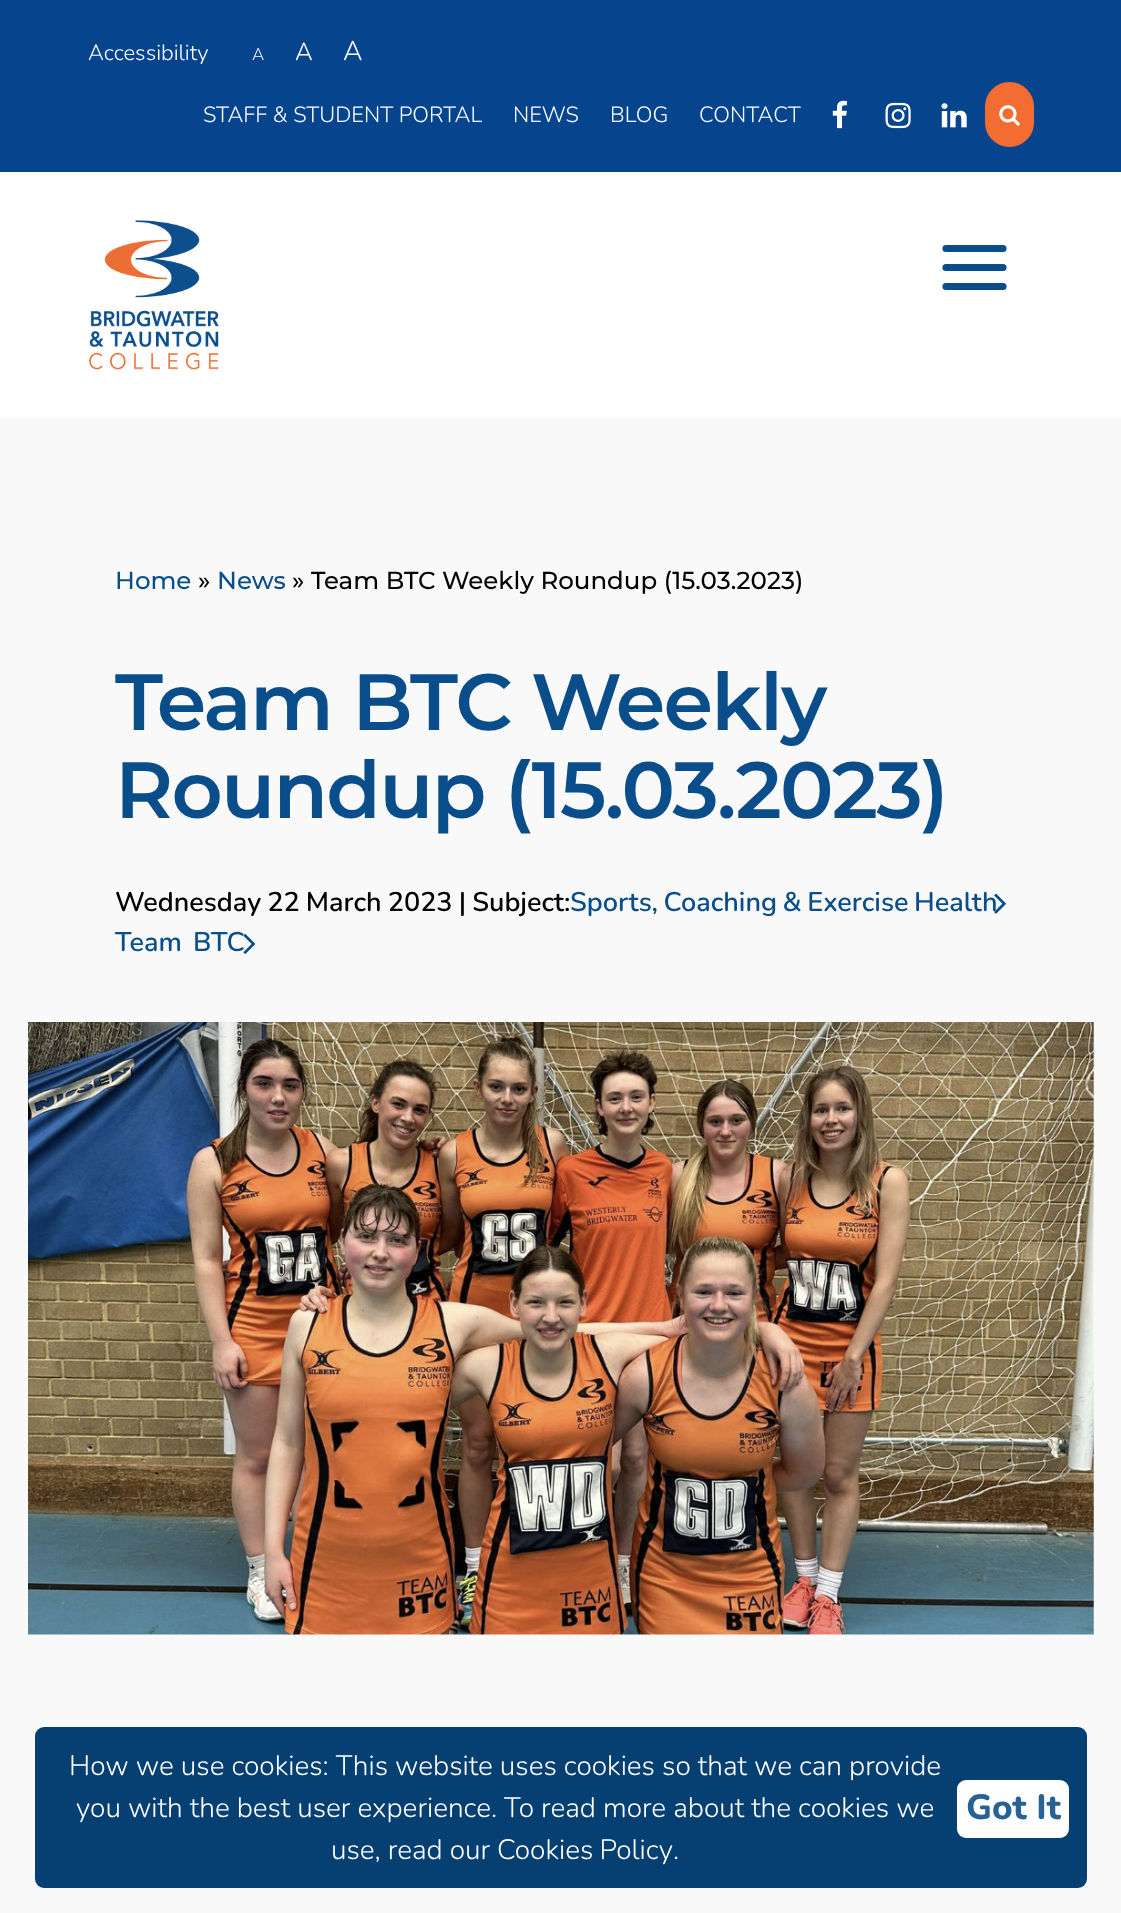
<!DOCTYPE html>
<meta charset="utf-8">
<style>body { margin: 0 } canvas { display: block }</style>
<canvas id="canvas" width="1121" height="1913"></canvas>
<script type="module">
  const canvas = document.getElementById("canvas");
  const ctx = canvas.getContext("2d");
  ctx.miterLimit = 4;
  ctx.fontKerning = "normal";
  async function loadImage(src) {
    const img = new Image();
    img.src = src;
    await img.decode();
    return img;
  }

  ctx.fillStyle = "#ffffff";
  ctx.fillRect(0, 0, 1121, 1913);
  ctx.fillStyle = "#06458e";
  ctx.fillRect(0, 0, 1121, 172);
  ctx.font = "300 22px Nunito";
  ctx.fillStyle = "#ffffff";
  ctx.fillText("Accessibility", 88, 60);
  ctx.font = "300 17px Nunito";
  ctx.fillText("A", 252, 60);
  ctx.font = "300 24.5px Nunito";
  ctx.fillText("A", 295, 60);
  ctx.font = "300 27px Nunito";
  ctx.fillText("A", 343, 60);
  ctx.font = "300 22px Nunito";
  ctx.fillText("STAFF & STUDENT PORTAL", 203, 122);
  ctx.fillText("NEWS", 513, 122);
  ctx.fillText("BLOG", 610, 122);
  ctx.fillText("CONTACT", 699, 122);
  ctx.drawImage(await loadImage("img1.png"), 832, 100, 15, 29);
  ctx.drawImage(await loadImage("img2.png"), 885, 102, 26, 27);
  ctx.drawImage(await loadImage("img3.png"), 941, 103, 26, 25);
  ctx.fillStyle = "#f36d32";
  ctx.beginPath();
  ctx.roundRect(986, 83, 47, 63, 23.5);
  ctx.fill();
  ctx.strokeStyle = "#f36d32";
  ctx.lineWidth = 2;
  ctx.stroke();
  ctx.drawImage(await loadImage("img4.png"), 999, 105, 21, 21);
  ctx.drawImage(await loadImage("img5.png"), 89, 220, 130, 150);
  ctx.beginPath();
  ctx.moveTo(946, 248.5);
  ctx.lineTo(1003, 248.5);
  ctx.moveTo(946, 267.5);
  ctx.lineTo(1003, 267.5);
  ctx.moveTo(946, 286.5);
  ctx.lineTo(1003, 286.5);
  ctx.strokeStyle = "#094e8b";
  ctx.lineWidth = 7.2;
  ctx.lineCap = "round";
  ctx.stroke();
  ctx.fillStyle = "#f9f9f9";
  ctx.fillRect(0, 418, 1121, 1495);
  ctx.font = "500 24.5px Montserrat";
  ctx.fillStyle = "#094e8b";
  ctx.fillText("Home", 115, 589);
  ctx.fillStyle = "#000000";
  ctx.fillText("»", 198, 589);
  ctx.fillStyle = "#094e8b";
  ctx.fillText("News", 217, 589);
  ctx.fillStyle = "#000000";
  ctx.fillText("» Team BTC Weekly Roundup (15.03.2023)", 292, 589);
  ctx.letterSpacing = "-1.75px";
  ctx.font = "600 79.6px Montserrat";
  ctx.fillStyle = "#094e8b";
  ctx.fillText("Team BTC Weekly", 115, 730);
  ctx.fillText("Roundup (15.03.2023)", 115, 818);
  ctx.letterSpacing = "0px";
  ctx.wordSpacing = "-1px";
  ctx.font = "600 27px Nunito";
  ctx.fillStyle = "#000000";
  ctx.fillText("Wednesday 22 March 2023 | Subject:", 115, 911);
  ctx.wordSpacing = "-1.5px";
  ctx.fillStyle = "#094e8b";
  ctx.fillText("Sports, Coaching & Exercise Health", 570, 911);
  ctx.drawImage(await loadImage("img6.png"), 994, 893, 12, 21);
  ctx.wordSpacing = "4px";
  ctx.fillText("Team BTC", 115, 951);
  ctx.drawImage(await loadImage("img7.png"), 243, 934, 13, 20);
  ctx.drawImage(await loadImage("img8.png"), 28, 1022, 1066, 613);
  ctx.fillStyle = "#064073";
  ctx.beginPath();
  ctx.roundRect(35, 1727, 1052, 161, 9);
  ctx.fill();
  ctx.wordSpacing = "0px";
  ctx.font = "300 28px Nunito";
  ctx.fillStyle = "#ffffff";
  ctx.fillText("How we use cookies: This website uses cookies so that we can provide", 69, 1775);
  ctx.fillText("you with the best user experience. To read more about the cookies we", 76, 1817);
  ctx.fillText("use, read our", 331, 1859);
  ctx.wordSpacing = "-1px";
  ctx.fillText("Cookies Policy", 497, 1859);
  ctx.wordSpacing = "0px";
  ctx.fillText(".", 673, 1859);
  ctx.beginPath();
  ctx.roundRect(957, 1780, 112, 58, 9);
  ctx.fill();
  ctx.font = "800 35px Nunito";
  ctx.fillStyle = "#286295";
  ctx.fillText("Got It", 966, 1819);
</script>
